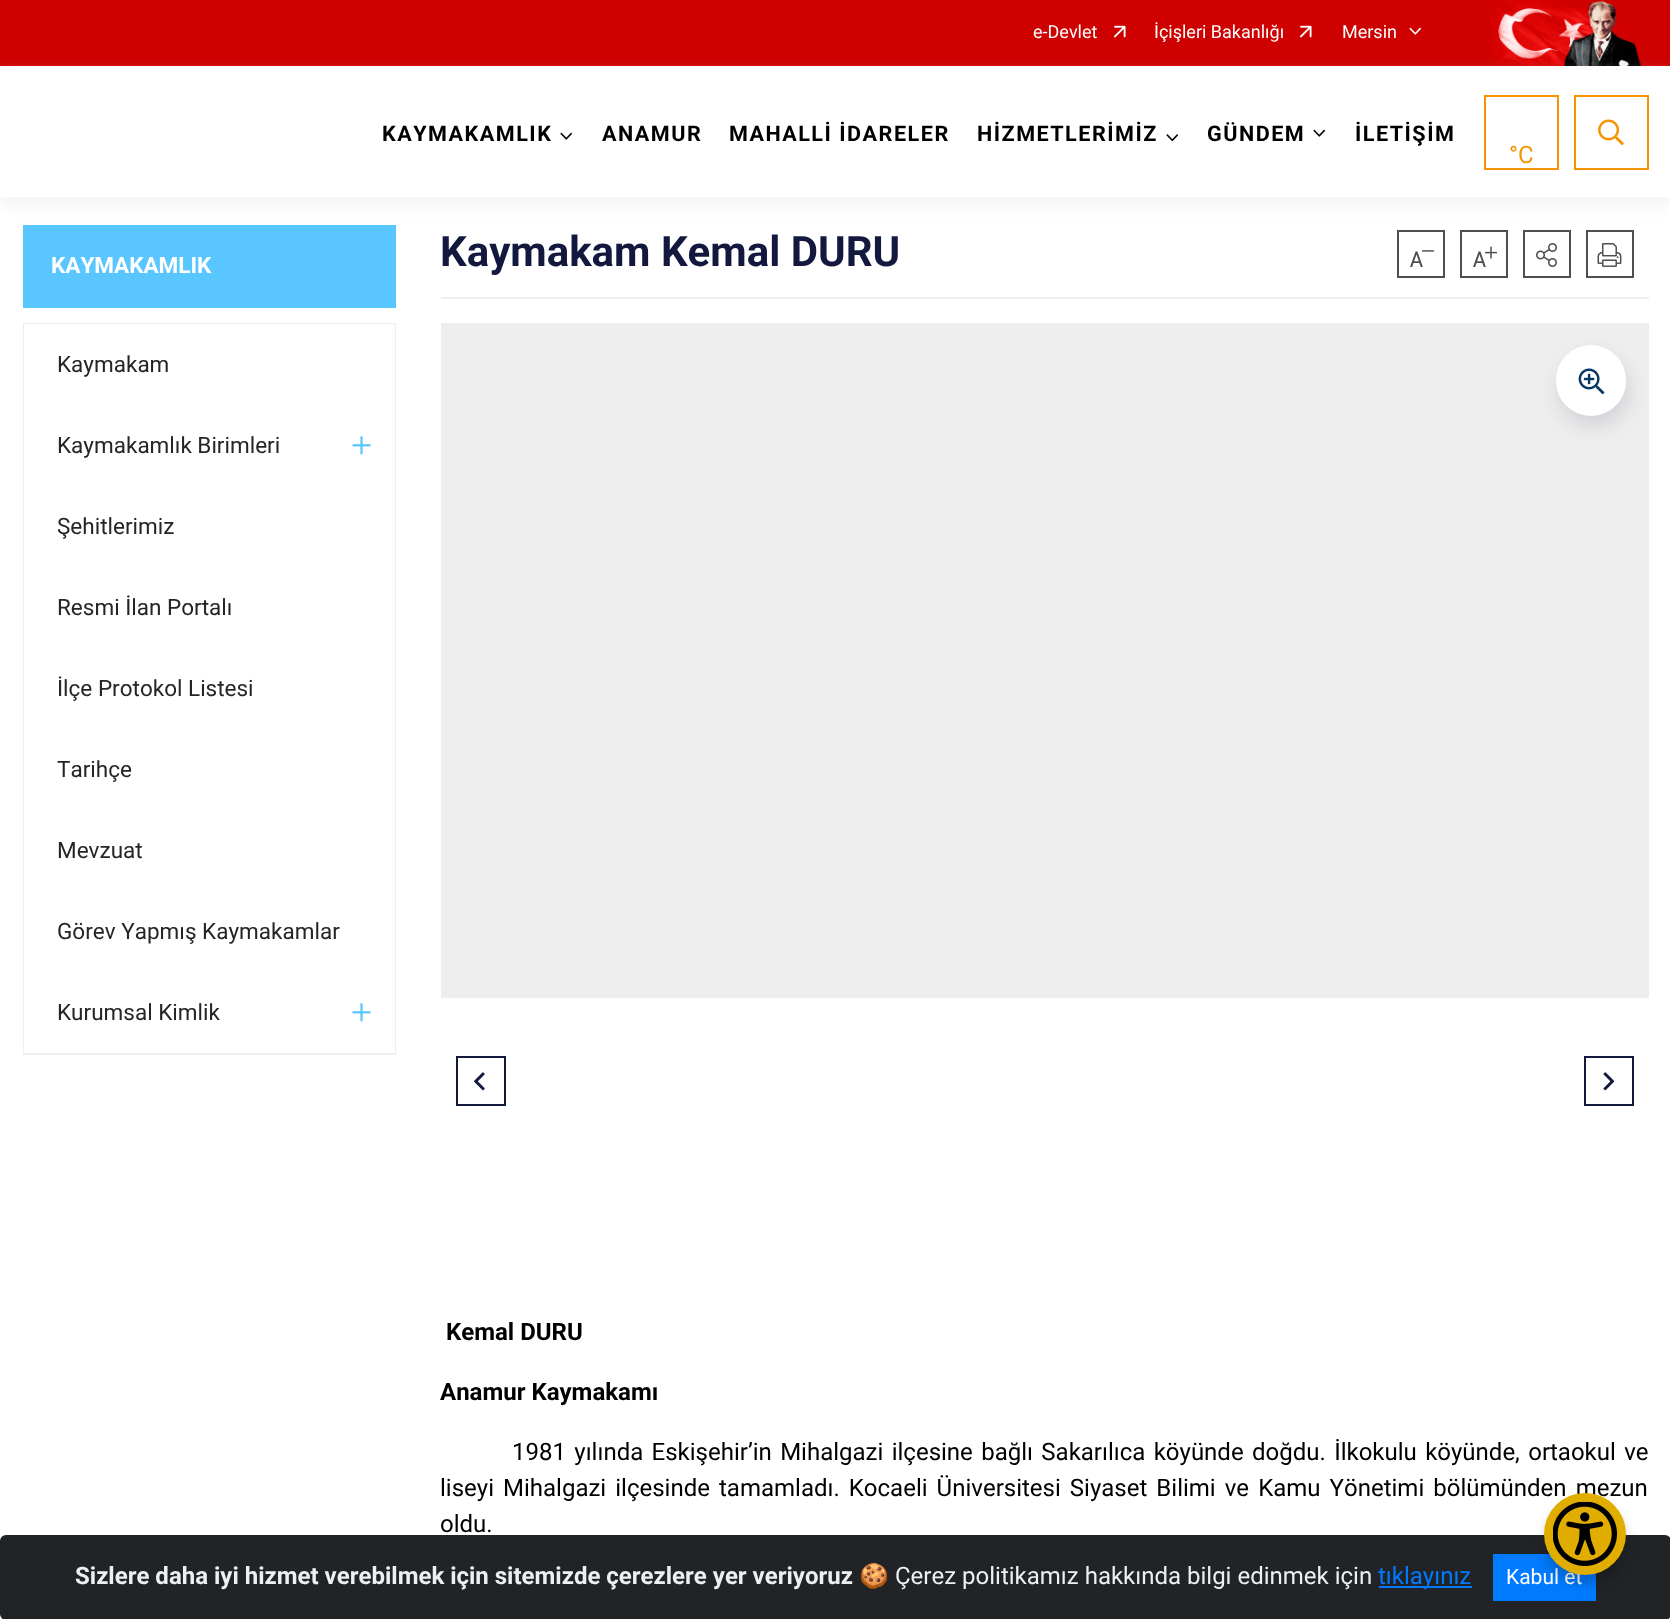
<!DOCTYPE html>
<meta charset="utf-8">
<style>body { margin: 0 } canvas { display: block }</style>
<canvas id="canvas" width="1670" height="1619"></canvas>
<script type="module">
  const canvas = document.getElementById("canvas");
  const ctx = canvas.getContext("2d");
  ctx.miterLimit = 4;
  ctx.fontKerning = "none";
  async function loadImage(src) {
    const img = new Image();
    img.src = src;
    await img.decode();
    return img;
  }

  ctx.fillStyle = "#ffffff";
  ctx.fillRect(0, 0, 1670, 1619);
  ctx.fillStyle = "#ce0000";
  ctx.fillRect(0, 0, 1670, 66);
  ctx.font = "18px Roboto";
  ctx.fillStyle = "#ffffff";
  ctx.fillText("e-Devlet", 1033, 38);
  ctx.drawImage(await loadImage("img1.png"), 1114, 25, 12, 13);
  ctx.fillText("İçişleri Bakanlığı", 1154, 38);
  ctx.drawImage(await loadImage("img1.png"), 1300, 25, 12, 13);
  ctx.fillText("Mersin", 1342, 38);
  ctx.drawImage(await loadImage("img2.png"), 1409, 27, 12, 8);
  ctx.drawImage(await loadImage("img3.png"), 1489, 0, 153, 66);
  ctx.fillStyle = "#59c6ff";
  ctx.fillRect(23, 225, 373, 83);
  ctx.fillStyle = "rgba(238, 238, 238, 0.62)";
  ctx.filter = "blur(7.5px)";
  ctx.beginPath();
  ctx.rect(0, 75, 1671, 131);
  ctx.fill();
  ctx.filter = "none";
  ctx.fillStyle = "#ffffff";
  ctx.fillRect(0, 70, 1670, 127);
  ctx.letterSpacing = "1.5px";
  ctx.font = "bold 21.6px Roboto";
  ctx.fillStyle = "#000000";
  ctx.fillText("KAYMAKAMLIK", 382, 141);
  ctx.drawImage(await loadImage("img4.png"), 560, 132, 12, 8);
  ctx.fillText("ANAMUR", 602, 141);
  ctx.fillText("MAHALLİ İDARELER", 729, 141);
  ctx.fillText("HİZMETLERİMİZ", 977, 141);
  ctx.drawImage(await loadImage("img5.png"), 1166, 134, 12, 8);
  ctx.fillText("GÜNDEM", 1207, 141);
  ctx.drawImage(await loadImage("img4.png"), 1313, 129, 12, 8);
  ctx.fillText("İLETİŞİM", 1355, 141);
  ctx.strokeStyle = "#f59300";
  ctx.lineWidth = 2;
  ctx.strokeRect(1485, 96, 73, 73);
  ctx.letterSpacing = "0px";
  ctx.font = "24px Roboto";
  ctx.fillStyle = "#f59300";
  ctx.fillText("°C", 1509, 163);
  ctx.strokeRect(1575, 96, 73, 73);
  ctx.drawImage(await loadImage("img6.png"), 1598, 119, 26, 27);
  ctx.font = "bold 22.5px Roboto";
  ctx.fillStyle = "#ffffff";
  ctx.fillText("KAYMAKAMLIK", 51, 273);
  ctx.strokeStyle = "#eeeeee";
  ctx.strokeRect(24, 324, 371, 730);
  ctx.fillRect(24, 324, 371, 729);
  ctx.font = "22.5px Roboto";
  ctx.fillStyle = "#252525";
  ctx.fillText("Kaymakam", 57, 372);
  ctx.fillText("Kaymakamlık Birimleri", 57, 453);
  ctx.drawImage(await loadImage("img7.png"), 352, 436, 19, 19);
  ctx.fillText("Şehitlerimiz", 57, 534);
  ctx.fillText("Resmi İlan Portalı", 57, 615);
  ctx.fillText("İlçe Protokol Listesi", 57, 696);
  ctx.fillText("Tarihçe", 57, 777);
  ctx.fillText("Mevzuat", 57, 858);
  ctx.fillText("Görev Yapmış Kaymakamlar", 57, 939);
  ctx.fillText("Kurumsal Kimlik", 57, 1020);
  ctx.drawImage(await loadImage("img7.png"), 352, 1003, 19, 19);
  ctx.fillStyle = "#eeeeee";
  ctx.fillRect(441, 297, 1208, 2);
  ctx.font = "bold 42px Roboto";
  ctx.fillStyle = "#13183e";
  ctx.fillText("Kaymakam Kemal DURU", 440, 266);
  ctx.strokeStyle = "#4f4f4f";
  ctx.strokeRect(1398, 231, 46, 46);
  ctx.drawImage(await loadImage("img8.png"), 1410, 250, 24, 17);
  ctx.strokeRect(1461, 231, 46, 46);
  ctx.drawImage(await loadImage("img9.png"), 1473, 246, 24, 21);
  ctx.strokeRect(1524, 231, 46, 46);
  ctx.drawImage(await loadImage("img10.png"), 1536, 243, 21, 24);
  ctx.strokeRect(1587, 231, 46, 46);
  ctx.drawImage(await loadImage("img11.png"), 1597, 243, 25, 24);
  ctx.fillStyle = "#eeeeee";
  ctx.fillRect(441, 323, 1208, 675);
  ctx.fillStyle = "rgba(19, 24, 62, 0.13)";
  ctx.filter = "blur(10px)";
  ctx.beginPath();
  ctx.roundRect(1559, 356, 70, 70, 35);
  ctx.fill();
  ctx.filter = "none";
  ctx.fillStyle = "#ffffff";
  ctx.beginPath();
  ctx.roundRect(1556, 345, 70, 71, 35);
  ctx.fill();
  ctx.drawImage(await loadImage("img12.png"), 1578, 368, 27, 27);
  ctx.strokeStyle = "#13183e";
  ctx.strokeRect(457, 1057, 48, 48);
  ctx.drawImage(await loadImage("img13.png"), 474, 1072, 11, 19);
  ctx.strokeRect(1585, 1057, 48, 48);
  ctx.drawImage(await loadImage("img14.png"), 1603, 1072, 12, 19);
  ctx.font = "bold 24px Roboto";
  ctx.fillStyle = "#000000";
  ctx.fillText("Kemal DURU", 446, 1340);
  ctx.fillText("Anamur Kaymakamı", 440, 1400);
  ctx.wordSpacing = "2.4px";
  ctx.font = "24px Roboto";
  ctx.fillText("1981 yılında Eskişehir’in Mihalgazi ilçesine bağlı Sakarılıca köyünde doğdu. İlkokulu köyünde, ortaokul ve", 512, 1460);
  ctx.wordSpacing = "3.1px";
  ctx.fillText("liseyi Mihalgazi ilçesinde tamamladı. Kocaeli Üniversitesi Siyaset Bilimi ve Kamu Yönetimi bölümünden mezun", 440, 1496);
  ctx.wordSpacing = "0px";
  ctx.fillText("oldu.", 440, 1532);
  ctx.fillStyle = "#212327";
  ctx.beginPath();
  ctx.roundRect(0, 1535, 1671, 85, 6);
  ctx.fill();
  ctx.font = "bold 24px Roboto";
  ctx.fillStyle = "#ecf0f1";
  ctx.fillText("Sizlere daha iyi hizmet verebilmek için sitemizde çerezlere yer veriyoruz", 75, 1584);
  ctx.font = "24px Noto Color Emoji";
  ctx.fillText("🍪", 859, 1584);
  ctx.font = "24px Roboto";
  ctx.fillText("Çerez politikamız hakkında bilgi edinmek için", 895, 1584);
  ctx.fillStyle = "#007bff";
  ctx.fillRect(1379, 1586, 93, 2);
  ctx.fillText("tıklayınız", 1378, 1584);
  ctx.fillRect(1493, 1554, 103, 47);
  ctx.font = "21px Roboto";
  ctx.fillStyle = "#ffffff";
  ctx.fillText("Kabul et", 1506, 1584);
  ctx.fillStyle = "rgba(0, 0, 0, 0.2)";
  ctx.filter = "blur(6px)";
  ctx.beginPath();
  ctx.roundRect(1544, 1502, 82, 82, 41);
  ctx.fill();
  ctx.filter = "none";
  ctx.fillStyle = "#e1ad01";
  ctx.beginPath();
  ctx.arc(1585, 1534, 41, 0, Math.PI * 2);
  ctx.fill();
  ctx.drawImage(await loadImage("img15.png"), 1553, 1502, 64, 64);
</script>
